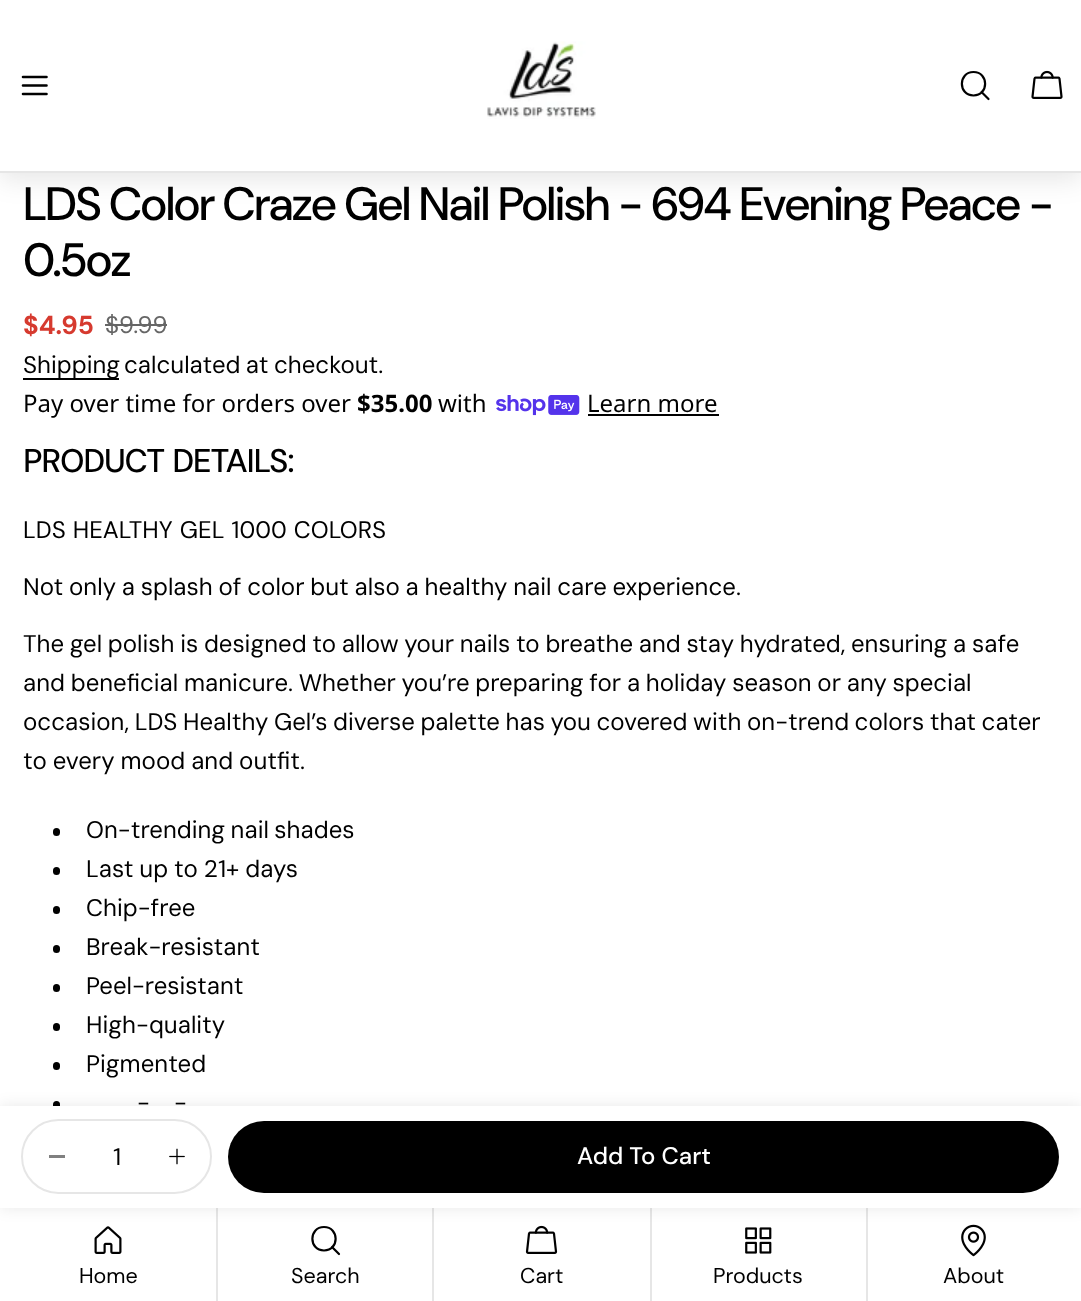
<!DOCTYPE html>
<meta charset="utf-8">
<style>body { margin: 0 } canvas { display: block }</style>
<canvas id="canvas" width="1081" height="1301"></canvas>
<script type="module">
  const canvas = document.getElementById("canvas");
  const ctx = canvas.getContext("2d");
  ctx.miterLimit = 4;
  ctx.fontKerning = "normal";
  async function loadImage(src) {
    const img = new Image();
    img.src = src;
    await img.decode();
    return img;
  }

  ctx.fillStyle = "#ffffff";
  ctx.fillRect(0, 0, 1081, 1301);
  ctx.fillStyle = "rgba(0, 0, 0, 0.1)";
  ctx.filter = "blur(13.5px)";
  ctx.beginPath();
  ctx.rect(0, 6, 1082, 173);
  ctx.fill();
  ctx.filter = "none";
  ctx.fillStyle = "#e6e6e6";
  ctx.fillRect(0, 171, 1081, 2);
  ctx.fillStyle = "#ffffff";
  ctx.fillRect(0, 0, 1081, 171);
  ctx.beginPath();
  ctx.moveTo(23, 85.5);
  ctx.lineTo(46.5, 85.5);
  ctx.moveTo(23, 77);
  ctx.lineTo(46.5, 77);
  ctx.moveTo(23, 94);
  ctx.lineTo(46.5, 94);
  ctx.strokeStyle = "#000000";
  ctx.lineWidth = 2.6;
  ctx.lineCap = "round";
  ctx.lineJoin = "round";
  ctx.stroke();
  ctx.drawImage(await loadImage("img1.png"), 487, 41, 109, 78);
  ctx.beginPath();
  ctx.moveTo(973.5, 95.5);
  ctx.bezierCurveTo(989, 95.5, 989, 72, 973.5, 72);
  ctx.bezierCurveTo(958, 72, 958, 95.5, 973.5, 95.5);
  ctx.closePath();
  ctx.moveTo(981.5, 92);
  ctx.lineTo(988.5, 99);
  ctx.lineWidth = 2.2;
  ctx.stroke();
  ctx.drawImage(await loadImage("img2.png"), 1031, 70, 32, 29);
  ctx.letterSpacing = "-1.87px";
  ctx.font = "500 46.8px DM Sans";
  ctx.fillStyle = "#000000";
  ctx.fillText("LDS Color Craze Gel Nail Polish - 694 Evening Peace -", 23, 220);
  ctx.fillText("0.5oz", 23, 276);
  ctx.letterSpacing = "0px";
  ctx.font = "bold 26px DM Sans";
  ctx.fillStyle = "#d63a2f";
  ctx.fillText("$4.95", 23, 334);
  ctx.font = "24px DM Sans";
  ctx.fillStyle = "#666666";
  ctx.fillText("$9.99", 105, 333);
  ctx.fillRect(105, 324, 62, 2);
  ctx.fillStyle = "#000000";
  ctx.fillRect(23, 378, 96, 2);
  ctx.fillText("Shipping", 23, 373);
  ctx.wordSpacing = "-1px";
  ctx.fillText("calculated at checkout.", 124, 373);
  ctx.wordSpacing = "0px";
  ctx.font = "24px Noto Sans";
  ctx.fillText("Pay over time for orders over", 23, 412);
  ctx.font = "bold 24px Noto Sans";
  ctx.fillText("$35.00", 357, 412);
  ctx.font = "24px Noto Sans";
  ctx.fillText("with", 438, 412);
  ctx.drawImage(await loadImage("img3.png"), 496, 395, 84, 21);
  ctx.fillText("Learn more", 587, 412);
  ctx.fillRect(588, 414, 131, 2);
  ctx.letterSpacing = "-1.25px";
  ctx.wordSpacing = "1px";
  ctx.font = "500 32.75px 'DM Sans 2'";
  ctx.fillText("PRODUCT DETAILS:", 23, 472);
  ctx.letterSpacing = "0px";
  ctx.wordSpacing = "0.5px";
  ctx.font = "24px DM Sans";
  ctx.fillText("LDS HEALTHY GEL 1000 COLORS", 23, 538);
  ctx.wordSpacing = "-0.7px";
  ctx.fillText("Not only a splash of color but also a healthy nail care experience.", 23, 595);
  ctx.wordSpacing = "-0.75px";
  ctx.fillText("The gel polish is designed to allow your nails to breathe and stay hydrated, ensuring a safe", 23, 652);
  ctx.fillText("and beneficial manicure. Whether you’re preparing for a holiday season or any special", 23, 691);
  ctx.wordSpacing = "-0.9px";
  ctx.fillText("occasion, LDS Healthy Gel’s diverse palette has you covered with on-trend colors that cater", 23, 730);
  ctx.wordSpacing = "-0.5px";
  ctx.fillText("to every mood and outfit.", 23, 769);
  ctx.beginPath();
  ctx.roundRect(53, 828, 7, 8, 3.5);
  ctx.fill();
  ctx.wordSpacing = "-1px";
  ctx.fillText("On-trending nail shades", 86, 838);
  ctx.beginPath();
  ctx.roundRect(53, 867, 7, 8, 3.5);
  ctx.fill();
  ctx.wordSpacing = "-0.5px";
  ctx.fillText("Last up to 21+ days", 86, 877);
  ctx.beginPath();
  ctx.roundRect(53, 906, 7, 8, 3.5);
  ctx.fill();
  ctx.wordSpacing = "0px";
  ctx.fillText("Chip-free", 86, 916);
  ctx.beginPath();
  ctx.roundRect(53, 945, 7, 8, 3.5);
  ctx.fill();
  ctx.fillText("Break-resistant", 86, 955);
  ctx.beginPath();
  ctx.roundRect(53, 984, 7, 8, 3.5);
  ctx.fill();
  ctx.fillText("Peel-resistant", 86, 994);
  ctx.beginPath();
  ctx.roundRect(53, 1023, 7, 8, 3.5);
  ctx.fill();
  ctx.fillText("High-quality", 86, 1033);
  ctx.beginPath();
  ctx.roundRect(53, 1062, 7, 8, 3.5);
  ctx.fill();
  ctx.fillText("Pigmented", 86, 1072);
  ctx.beginPath();
  ctx.roundRect(53, 1101, 7, 8, 3.5);
  ctx.fill();
  ctx.fillText("-", 137, 1111);
  ctx.fillText("-", 174, 1111);
  ctx.drawImage(await loadImage("img4.png"), 94, 1226, 28, 28);
  ctx.font = "21.5px 'DM Sans 2'";
  ctx.fillText("Home", 79, 1283);
  ctx.fillStyle = "#e6e6e6";
  ctx.fillRect(216, 1208, 2, 93);
  ctx.beginPath();
  ctx.moveTo(324, 1250.5);
  ctx.bezierCurveTo(339.5, 1250.5, 339.5, 1227, 324, 1227);
  ctx.bezierCurveTo(308.5, 1227, 308.5, 1250.5, 324, 1250.5);
  ctx.closePath();
  ctx.moveTo(332, 1247);
  ctx.lineTo(339, 1254);
  ctx.stroke();
  ctx.fillStyle = "#000000";
  ctx.fillText("Search", 291, 1283);
  ctx.fillStyle = "#e6e6e6";
  ctx.fillRect(432, 1208, 2, 93);
  ctx.drawImage(await loadImage("img5.png"), 525, 1225, 33, 29);
  ctx.fillStyle = "#000000";
  ctx.fillText("Cart", 520, 1283);
  ctx.fillStyle = "#e6e6e6";
  ctx.fillRect(650, 1208, 2, 93);
  ctx.drawImage(await loadImage("img6.png"), 745, 1227, 27, 27);
  ctx.fillStyle = "#000000";
  ctx.fillText("Products", 713, 1283);
  ctx.fillStyle = "#e6e6e6";
  ctx.fillRect(866, 1208, 2, 93);
  ctx.drawImage(await loadImage("img7.png"), 961, 1224, 25, 33);
  ctx.fillStyle = "#000000";
  ctx.fillText("About", 943, 1283);
  ctx.fillStyle = "rgba(0, 0, 0, 0.09)";
  ctx.filter = "blur(7.5px)";
  ctx.beginPath();
  ctx.rect(0, 1106, 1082, 102);
  ctx.fill();
  ctx.filter = "none";
  ctx.fillStyle = "#ffffff";
  ctx.fillRect(0, 1106, 1081, 102);
  ctx.beginPath();
  ctx.roundRect(22, 1120, 189, 73, 36.5);
  ctx.strokeStyle = "#e6e6e6";
  ctx.lineWidth = 2;
  ctx.lineJoin = "miter";
  ctx.stroke();
  ctx.fillStyle = "#808080";
  ctx.fillRect(49, 1155, 16, 3);
  ctx.font = "24px DM Sans";
  ctx.fillStyle = "#000000";
  ctx.fillText("1", 113, 1165);
  ctx.drawImage(await loadImage("img8.png"), 169, 1148, 16, 17);
  ctx.beginPath();
  ctx.roundRect(228, 1121, 831, 72, 36);
  ctx.fill();
  ctx.font = "500 24px 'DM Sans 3'";
  ctx.fillStyle = "#ffffff";
  ctx.fillText("Add To Cart", 577, 1164);
</script>
